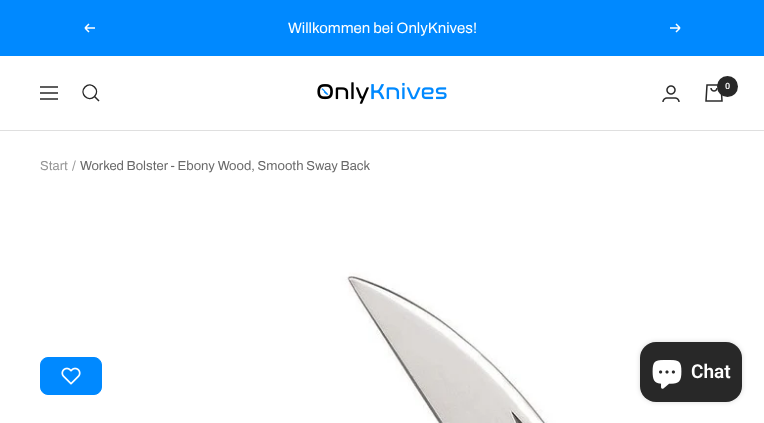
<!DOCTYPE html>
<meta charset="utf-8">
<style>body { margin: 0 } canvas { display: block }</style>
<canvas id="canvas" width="764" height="423"></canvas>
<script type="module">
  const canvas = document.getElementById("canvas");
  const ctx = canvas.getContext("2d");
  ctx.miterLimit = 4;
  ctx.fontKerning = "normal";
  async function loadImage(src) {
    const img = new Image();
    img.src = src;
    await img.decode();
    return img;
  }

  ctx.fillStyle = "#ffffff";
  ctx.fillRect(0, 0, 764, 423);
  ctx.fillStyle = "#0089ff";
  ctx.fillRect(0, 0, 764, 56);
  ctx.beginPath();
  ctx.moveTo(95, 28);
  ctx.lineTo(85, 28);
  ctx.moveTo(85, 28);
  ctx.lineTo(89, 32);
  ctx.moveTo(85, 28);
  ctx.lineTo(89, 24);
  ctx.strokeStyle = "#ffffff";
  ctx.lineWidth = 1.5;
  ctx.stroke();
  ctx.font = "600 15px Archivo";
  ctx.fillStyle = "#ffffff";
  ctx.fillText("Willkommen bei OnlyKnives!", 288, 33);
  ctx.beginPath();
  ctx.moveTo(670, 28);
  ctx.lineTo(680, 28);
  ctx.moveTo(680, 28);
  ctx.lineTo(676, 32);
  ctx.moveTo(680, 28);
  ctx.lineTo(676, 24);
  ctx.stroke();
  ctx.fillStyle = "#dfdfdf";
  ctx.fillRect(0, 130, 764, 1);
  ctx.beginPath();
  ctx.moveTo(40, 87);
  ctx.lineTo(58, 87);
  ctx.moveTo(40, 99);
  ctx.lineTo(58, 99);
  ctx.closePath();
  ctx.moveTo(40, 93);
  ctx.lineTo(58, 93);
  ctx.closePath();
  ctx.moveTo(94.5, 96.5);
  ctx.bezierCurveTo(100.5, 90, 91.5, 81, 85, 87);
  ctx.bezierCurveTo(79, 93.5, 88, 102.5, 94.5, 96.5);
  ctx.closePath();
  ctx.moveTo(94.5, 96.5);
  ctx.lineTo(99, 101);
  ctx.strokeStyle = "#282828";
  ctx.stroke();
  ctx.drawImage(await loadImage("img1.png"), 317, 82, 130, 22);
  ctx.drawImage(await loadImage("img2.png"), 662, 85, 18, 17);
  ctx.drawImage(await loadImage("img3.png"), 705, 84, 18, 18);
  ctx.fillStyle = "#282828";
  ctx.beginPath();
  ctx.arc(727.5, 86.5, 10.5, 0, Math.PI * 2);
  ctx.fill();
  ctx.font = "600 9px 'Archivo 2'";
  ctx.fillStyle = "#ffffff";
  ctx.fillText("0", 725, 89);
  ctx.font = "600 13px Archivo";
  ctx.fillStyle = "#969696";
  ctx.fillText("Start", 40, 170);
  ctx.fillText("/", 72, 170);
  ctx.fillStyle = "#696969";
  ctx.fillText("Worked Bolster - Ebony Wood, Smooth Sway Back", 80, 170);
  ctx.drawImage(await loadImage("img4.png"), 40, 202, 684, 221);
  ctx.fillStyle = "#0089ff";
  ctx.beginPath();
  ctx.roundRect(40.5, 357.5, 61, 37, 7.5);
  ctx.fill();
  ctx.strokeStyle = "#0089ff";
  ctx.lineWidth = 1;
  ctx.stroke();
  ctx.drawImage(await loadImage("img5.png"), 61, 367, 20, 18);
  ctx.fillStyle = "rgba(0, 0, 0, 0.15)";
  ctx.filter = "blur(2.5px)";
  ctx.beginPath();
  ctx.roundRect(640, 342, 102, 60, 16);
  ctx.fill();
  ctx.filter = "none";
  ctx.fillStyle = "#282828";
  ctx.beginPath();
  ctx.roundRect(640, 342, 102, 60, 16);
  ctx.fill();
  ctx.drawImage(await loadImage("img6.png"), 652, 360, 30, 29);
  ctx.font = "600 19px Roboto";
  ctx.fillStyle = "#ffffff";
  ctx.fillText("Chat", 691, 378);
</script>
